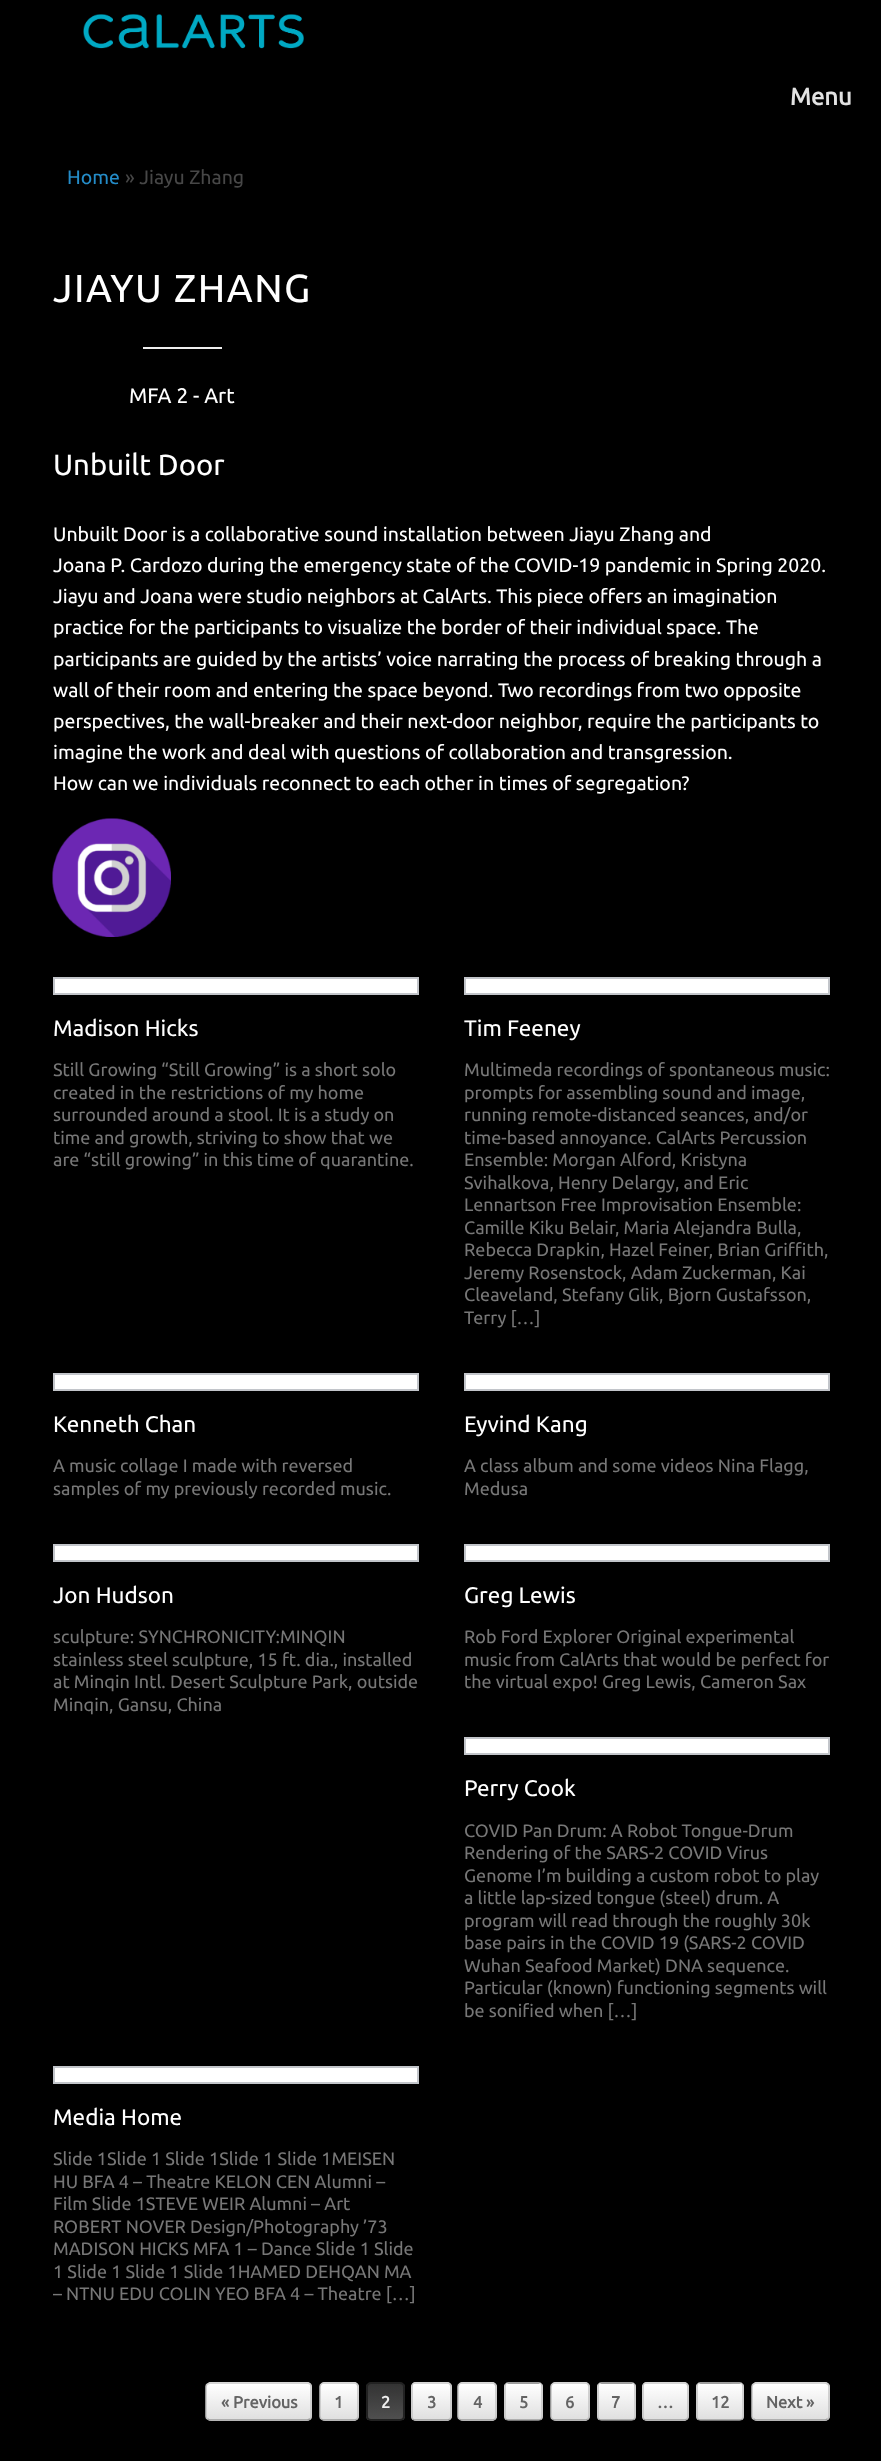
<!DOCTYPE html>
<meta charset="utf-8">
<style>body { margin: 0 } canvas { display: block }</style>
<canvas id="canvas" width="881" height="2461"></canvas>
<script type="module">
  const canvas = document.getElementById("canvas");
  const ctx = canvas.getContext("2d");
  ctx.miterLimit = 4;
  ctx.fontKerning = "normal";
  async function loadImage(src) {
    const img = new Image();
    img.src = src;
    await img.decode();
    return img;
  }
  let gradient;

  ctx.fillStyle = "#000000";
  ctx.fillRect(0, 0, 881, 2461);
  ctx.drawImage(await loadImage("img1.png"), 83, 14, 221, 35);
  ctx.font = "bold 24px Ubuntu";
  ctx.fillStyle = "#e2e2e2";
  ctx.fillText("Menu", 790, 105);
  ctx.font = "19.5px Ubuntu";
  ctx.fillStyle = "#248cc8";
  ctx.fillText("Home", 67, 184);
  ctx.fillStyle = "#474747";
  ctx.fillText("» Jiayu Zhang", 125, 184);
  ctx.letterSpacing = "1.5px";
  ctx.font = "39px Ubuntu";
  ctx.fillStyle = "#ffffff";
  ctx.fillText("JIAYU ZHANG", 53, 302);
  ctx.fillStyle = "#eeeeee";
  ctx.fillRect(143, 347, 79, 2);
  ctx.letterSpacing = "0px";
  ctx.font = "21px Ubuntu";
  ctx.fillStyle = "#ffffff";
  ctx.fillText("MFA 2 - Art", 129, 403);
  ctx.font = "29.25px Ubuntu";
  ctx.fillText("Unbuilt Door", 53, 475);
  ctx.font = "19.5px Ubuntu";
  ctx.fillText("Unbuilt Door is a collaborative sound installation between Jiayu Zhang and", 53, 541);
  ctx.fillText("Joana P. Cardozo during the emergency state of the COVID-19 pandemic in Spring 2020.", 53, 572);
  ctx.fillText("Jiayu and Joana were studio neighbors at CalArts. This piece offers an imagination", 53, 603);
  ctx.fillText("practice for the participants to visualize the border of their individual space. The", 53, 634);
  ctx.fillText("participants are guided by the artists’ voice narrating the process of breaking through a", 53, 666);
  ctx.fillText("wall of their room and entering the space beyond. Two recordings from two opposite", 53, 697);
  ctx.fillText("perspectives, the wall-breaker and their next-door neighbor, require the participants to", 53, 728);
  ctx.fillText("imagine the work and deal with questions of collaboration and transgression.", 53, 759);
  ctx.fillText("How can we individuals reconnect to each other in times of segregation?", 53, 790);
  ctx.drawImage(await loadImage("img2.png"), 52, 818, 119, 119);
  ctx.beginPath();
  ctx.rect(54, 978, 364, 16);
  ctx.fill();
  ctx.strokeStyle = "#c2c5ca";
  ctx.lineWidth = 2;
  ctx.stroke();
  ctx.font = "22.5px Ubuntu";
  ctx.fillText("Madison Hicks", 53, 1036);
  ctx.font = "18px Ubuntu";
  ctx.fillStyle = "#777777";
  ctx.fillText("Still Growing “Still Growing” is a short solo", 53, 1076);
  ctx.fillText("created in the restrictions of my home", 53, 1099);
  ctx.fillText("surrounded around a stool. It is a study on", 53, 1121);
  ctx.fillText("time and growth, striving to show that we", 53, 1144);
  ctx.fillText("are “still growing” in this time of quarantine.", 53, 1166);
  ctx.fillStyle = "#ffffff";
  ctx.beginPath();
  ctx.rect(465, 978, 364, 16);
  ctx.fill();
  ctx.stroke();
  ctx.font = "22.5px Ubuntu";
  ctx.fillText("Tim Feeney", 464, 1036);
  ctx.font = "18px Ubuntu";
  ctx.fillStyle = "#777777";
  ctx.fillText("Multimeda recordings of spontaneous music:", 464, 1076);
  ctx.fillText("prompts for assembling sound and image,", 464, 1099);
  ctx.fillText("running remote-distanced seances, and/or", 464, 1121);
  ctx.fillText("time-based annoyance. CalArts Percussion", 464, 1144);
  ctx.fillText("Ensemble: Morgan Alford, Kristyna", 464, 1166);
  ctx.fillText("Svihalkova, Henry Delargy, and Eric", 464, 1189);
  ctx.fillText("Lennartson Free Improvisation Ensemble:", 464, 1211);
  ctx.fillText("Camille Kiku Belair, Maria Alejandra Bulla,", 464, 1234);
  ctx.fillText("Rebecca Drapkin, Hazel Feiner, Brian Griffith,", 464, 1256);
  ctx.fillText("Jeremy Rosenstock, Adam Zuckerman, Kai", 464, 1279);
  ctx.fillText("Cleaveland, Stefany Glik, Bjorn Gustafsson,", 464, 1301);
  ctx.fillText("Terry […]", 464, 1324);
  ctx.fillStyle = "#ffffff";
  ctx.beginPath();
  ctx.rect(54, 1374, 364, 16);
  ctx.fill();
  ctx.stroke();
  ctx.font = "22.5px Ubuntu";
  ctx.fillText("Kenneth Chan", 53, 1432);
  ctx.font = "18px Ubuntu";
  ctx.fillStyle = "#777777";
  ctx.fillText("A music collage I made with reversed", 53, 1472);
  ctx.fillText("samples of my previously recorded music.", 53, 1495);
  ctx.fillStyle = "#ffffff";
  ctx.beginPath();
  ctx.rect(465, 1374, 364, 16);
  ctx.fill();
  ctx.stroke();
  ctx.font = "22.5px Ubuntu";
  ctx.fillText("Eyvind Kang", 464, 1432);
  ctx.font = "18px Ubuntu";
  ctx.fillStyle = "#777777";
  ctx.fillText("A class album and some videos Nina Flagg,", 464, 1472);
  ctx.fillText("Medusa", 464, 1495);
  ctx.fillStyle = "#ffffff";
  ctx.beginPath();
  ctx.rect(54, 1545, 364, 16);
  ctx.fill();
  ctx.stroke();
  ctx.font = "22.5px Ubuntu";
  ctx.fillText("Jon Hudson", 53, 1603);
  ctx.font = "18px Ubuntu";
  ctx.fillStyle = "#777777";
  ctx.fillText("sculpture: SYNCHRONICITY:MINQIN", 53, 1643);
  ctx.fillText("stainless steel sculpture, 15 ft. dia., installed", 53, 1666);
  ctx.fillText("at Minqin Intl. Desert Sculpture Park, outside", 53, 1688);
  ctx.fillText("Minqin, Gansu, China", 53, 1711);
  ctx.fillStyle = "#ffffff";
  ctx.beginPath();
  ctx.rect(465, 1545, 364, 16);
  ctx.fill();
  ctx.stroke();
  ctx.font = "22.5px Ubuntu";
  ctx.fillText("Greg Lewis", 464, 1603);
  ctx.font = "18px Ubuntu";
  ctx.fillStyle = "#777777";
  ctx.fillText("Rob Ford Explorer Original experimental", 464, 1643);
  ctx.fillText("music from CalArts that would be perfect for", 464, 1666);
  ctx.fillText("the virtual expo! Greg Lewis, Cameron Sax", 464, 1688);
  ctx.fillStyle = "#ffffff";
  ctx.beginPath();
  ctx.rect(465, 1738, 364, 16);
  ctx.fill();
  ctx.stroke();
  ctx.font = "22.5px Ubuntu";
  ctx.fillText("Perry Cook", 464, 1796);
  ctx.font = "18px Ubuntu";
  ctx.fillStyle = "#777777";
  ctx.fillText("COVID Pan Drum: A Robot Tongue-Drum", 464, 1837);
  ctx.fillText("Rendering of the SARS-2 COVID Virus", 464, 1859);
  ctx.fillText("Genome I’m building a custom robot to play", 464, 1882);
  ctx.fillText("a little lap-sized tongue (steel) drum. A", 464, 1904);
  ctx.fillText("program will read through the roughly 30k", 464, 1927);
  ctx.fillText("base pairs in the COVID 19 (SARS-2 COVID", 464, 1949);
  ctx.fillText("Wuhan Seafood Market) DNA sequence.", 464, 1972);
  ctx.fillText("Particular (known) functioning segments will", 464, 1994);
  ctx.fillText("be sonified when […]", 464, 2017);
  ctx.fillStyle = "#ffffff";
  ctx.beginPath();
  ctx.rect(54, 2067, 364, 16);
  ctx.fill();
  ctx.stroke();
  ctx.font = "22.5px Ubuntu";
  ctx.fillText("Media Home", 53, 2125);
  ctx.font = "18px Ubuntu";
  ctx.fillStyle = "#777777";
  ctx.fillText("Slide 1Slide 1 Slide 1Slide 1 Slide 1MEISEN", 53, 2165);
  ctx.fillText("HU BFA 4 – Theatre KELON CEN Alumni –", 53, 2188);
  ctx.fillText("Film Slide 1STEVE WEIR Alumni – Art", 53, 2210);
  ctx.fillText("ROBERT NOVER Design/Photography ’73", 53, 2233);
  ctx.fillText("MADISON HICKS MFA 1 – Dance Slide 1 Slide", 53, 2255);
  ctx.fillText("1 Slide 1 Slide 1 Slide 1HAMED DEHQAN MA", 53, 2278);
  ctx.fillText("– NTNU EDU COLIN YEO BFA 4 – Theatre […]", 53, 2300);
  ctx.save();
  ctx.beginPath();
  ctx.roundRect(206, 2382, 106, 39, 5);
  ctx.clip();
  gradient = ctx.createLinearGradient(207, 2384, 207, 2348);
  gradient.addColorStop(0, "#dfdfdf");
  gradient.addColorStop(1, "#ffffff");
  ctx.fillStyle = gradient;
  ctx.fillRect(206, 2382, 106, 2);
  gradient = ctx.createLinearGradient(207, 2420, 207, 2384);
  gradient.addColorStop(0, "#dfdfdf");
  gradient.addColorStop(1, "#ffffff");
  ctx.fillStyle = gradient;
  ctx.fillRect(206, 2384, 106, 36);
  gradient = ctx.createLinearGradient(207, 2456, 207, 2420);
  gradient.addColorStop(0, "#dfdfdf");
  gradient.addColorStop(1, "#ffffff");
  ctx.fillStyle = gradient;
  ctx.fillRect(206, 2420, 106, 1);
  ctx.restore();
  ctx.fillStyle = "rgba(255, 255, 255, 0.5)";
  ctx.beginPath();
  ctx.moveTo(210, 2385);
  ctx.lineTo(292, 2385);
  ctx.bezierCurveTo(312, 2385, 310, 2381, 310, 2398);
  ctx.lineTo(310, 2419);
  ctx.bezierCurveTo(311, 2419, 311, 2418, 311, 2417);
  ctx.lineTo(311, 2387);
  ctx.bezierCurveTo(311, 2385, 310, 2384, 308, 2384);
  ctx.lineTo(210, 2384);
  ctx.bezierCurveTo(208, 2384, 207, 2385, 207, 2387);
  ctx.lineTo(207, 2388);
  ctx.bezierCurveTo(207, 2386, 208, 2385, 210, 2385);
  ctx.closePath();
  ctx.fill();
  ctx.beginPath();
  ctx.moveTo(207.5, 2384);
  ctx.lineTo(210, 2383);
  ctx.lineTo(308, 2383);
  ctx.lineTo(310, 2384);
  ctx.strokeStyle = "#d2d2d2";
  ctx.lineWidth = 1.5;
  ctx.stroke();
  ctx.beginPath();
  ctx.moveTo(310, 2384);
  ctx.bezierCurveTo(311, 2384.5, 311, 2385.5, 311, 2386.5);
  ctx.lineTo(311, 2416.5);
  ctx.bezierCurveTo(311, 2417.5, 311, 2418.5, 310, 2419);
  ctx.strokeStyle = "#c3c3c3";
  ctx.stroke();
  ctx.beginPath();
  ctx.moveTo(310, 2419);
  ctx.lineTo(307.5, 2420);
  ctx.lineTo(209.5, 2420);
  ctx.lineTo(207.5, 2419);
  ctx.strokeStyle = "#9f9f9f";
  ctx.stroke();
  ctx.beginPath();
  ctx.moveTo(207.5, 2419);
  ctx.bezierCurveTo(206.5, 2418.5, 206, 2417.5, 206, 2416.5);
  ctx.lineTo(206, 2386.5);
  ctx.bezierCurveTo(206, 2385.5, 206.5, 2384.5, 207.5, 2384);
  ctx.strokeStyle = "#c3c3c3";
  ctx.stroke();
  ctx.font = "bold 16.5px Ubuntu";
  ctx.fillStyle = "#646464";
  ctx.fillText("« Previous", 221, 2408);
  ctx.save();
  ctx.beginPath();
  ctx.roundRect(320, 2382, 39, 39, 5);
  ctx.clip();
  gradient = ctx.createLinearGradient(321, 2384, 321, 2348);
  gradient.addColorStop(0, "#dfdfdf");
  gradient.addColorStop(1, "#ffffff");
  ctx.fillStyle = gradient;
  ctx.fillRect(320, 2382, 39, 2);
  gradient = ctx.createLinearGradient(321, 2420, 321, 2384);
  gradient.addColorStop(0, "#dfdfdf");
  gradient.addColorStop(1, "#ffffff");
  ctx.fillStyle = gradient;
  ctx.fillRect(320, 2384, 39, 36);
  gradient = ctx.createLinearGradient(321, 2456, 321, 2420);
  gradient.addColorStop(0, "#dfdfdf");
  gradient.addColorStop(1, "#ffffff");
  ctx.fillStyle = gradient;
  ctx.fillRect(320, 2420, 39, 1);
  ctx.restore();
  ctx.beginPath();
  ctx.moveTo(321.5, 2384);
  ctx.bezierCurveTo(322, 2383, 323, 2383, 324, 2383);
  ctx.lineTo(354, 2383);
  ctx.bezierCurveTo(355, 2383, 356, 2383, 356.5, 2384);
  ctx.strokeStyle = "#d2d2d2";
  ctx.stroke();
  ctx.beginPath();
  ctx.moveTo(356.5, 2384);
  ctx.bezierCurveTo(357.5, 2384.5, 358, 2385.5, 358, 2386.5);
  ctx.lineTo(358, 2416.5);
  ctx.bezierCurveTo(358, 2417.5, 357.5, 2418.5, 356.5, 2419);
  ctx.strokeStyle = "#c3c3c3";
  ctx.stroke();
  ctx.beginPath();
  ctx.moveTo(356.5, 2419);
  ctx.bezierCurveTo(356, 2420, 355, 2420, 354, 2420);
  ctx.lineTo(324, 2420);
  ctx.bezierCurveTo(323, 2420, 322, 2420, 321.5, 2419);
  ctx.strokeStyle = "#9f9f9f";
  ctx.stroke();
  ctx.beginPath();
  ctx.moveTo(321.5, 2419);
  ctx.bezierCurveTo(320.5, 2418.5, 320, 2417.5, 320, 2416.5);
  ctx.lineTo(320, 2386.5);
  ctx.bezierCurveTo(320, 2385.5, 320.5, 2384.5, 321.5, 2384);
  ctx.strokeStyle = "#c3c3c3";
  ctx.stroke();
  ctx.fillText("1", 334, 2408);
  ctx.save();
  ctx.beginPath();
  ctx.roundRect(366, 2382, 39, 39, 5);
  ctx.clip();
  gradient = ctx.createLinearGradient(368, 2420, 368, 2384);
  gradient.addColorStop(0, "#505050");
  gradient.addColorStop(1, "#333333");
  ctx.fillStyle = gradient;
  ctx.fillRect(366, 2384, 39, 36);
  ctx.restore();
  ctx.beginPath();
  ctx.roundRect(367, 2383, 37, 37, 4);
  ctx.strokeStyle = "#222222";
  ctx.lineWidth = 2;
  ctx.stroke();
  ctx.fillStyle = "#efefef";
  ctx.fillText("2", 381, 2408);
  ctx.save();
  ctx.beginPath();
  ctx.roundRect(411, 2382, 41, 39, 5);
  ctx.clip();
  gradient = ctx.createLinearGradient(413, 2384, 413, 2348);
  gradient.addColorStop(0, "#dfdfdf");
  gradient.addColorStop(1, "#ffffff");
  ctx.fillStyle = gradient;
  ctx.fillRect(411, 2382, 41, 2);
  gradient = ctx.createLinearGradient(413, 2420, 413, 2384);
  gradient.addColorStop(0, "#dfdfdf");
  gradient.addColorStop(1, "#ffffff");
  ctx.fillStyle = gradient;
  ctx.fillRect(411, 2384, 41, 36);
  gradient = ctx.createLinearGradient(413, 2456, 413, 2420);
  gradient.addColorStop(0, "#dfdfdf");
  gradient.addColorStop(1, "#ffffff");
  ctx.fillStyle = gradient;
  ctx.fillRect(411, 2420, 41, 1);
  ctx.restore();
  ctx.beginPath();
  ctx.moveTo(413, 2384);
  ctx.bezierCurveTo(413.5, 2383, 414.5, 2383, 415.5, 2383);
  ctx.lineTo(447, 2383);
  ctx.bezierCurveTo(448, 2383, 449, 2383, 449.5, 2384);
  ctx.strokeStyle = "#d2d2d2";
  ctx.lineWidth = 1.5;
  ctx.stroke();
  ctx.beginPath();
  ctx.moveTo(449.5, 2384);
  ctx.bezierCurveTo(450.5, 2384.5, 451, 2385.5, 451, 2386.5);
  ctx.lineTo(451, 2416.5);
  ctx.bezierCurveTo(451, 2417.5, 450.5, 2418.5, 449.5, 2419);
  ctx.strokeStyle = "#c3c3c3";
  ctx.stroke();
  ctx.beginPath();
  ctx.moveTo(449.5, 2419);
  ctx.bezierCurveTo(449, 2420, 448, 2420, 447, 2420);
  ctx.lineTo(415.5, 2420);
  ctx.bezierCurveTo(414.5, 2420, 413.5, 2420, 413, 2419);
  ctx.strokeStyle = "#9f9f9f";
  ctx.stroke();
  ctx.beginPath();
  ctx.moveTo(413, 2419);
  ctx.bezierCurveTo(412, 2418.5, 412, 2417.5, 412, 2416.5);
  ctx.lineTo(412, 2386.5);
  ctx.bezierCurveTo(412, 2385.5, 412, 2384.5, 413, 2384);
  ctx.strokeStyle = "#c3c3c3";
  ctx.stroke();
  ctx.fillStyle = "#646464";
  ctx.fillText("3", 427, 2408);
  ctx.save();
  ctx.beginPath();
  ctx.roundRect(458, 2382, 39, 39, 5);
  ctx.clip();
  gradient = ctx.createLinearGradient(459, 2384, 459, 2348);
  gradient.addColorStop(0, "#dfdfdf");
  gradient.addColorStop(1, "#ffffff");
  ctx.fillStyle = gradient;
  ctx.fillRect(458, 2382, 39, 2);
  gradient = ctx.createLinearGradient(459, 2420, 459, 2384);
  gradient.addColorStop(0, "#dfdfdf");
  gradient.addColorStop(1, "#ffffff");
  ctx.fillStyle = gradient;
  ctx.fillRect(458, 2384, 39, 36);
  gradient = ctx.createLinearGradient(459, 2456, 459, 2420);
  gradient.addColorStop(0, "#dfdfdf");
  gradient.addColorStop(1, "#ffffff");
  ctx.fillStyle = gradient;
  ctx.fillRect(458, 2420, 39, 1);
  ctx.restore();
  ctx.beginPath();
  ctx.moveTo(459.5, 2384);
  ctx.bezierCurveTo(460, 2383, 461, 2383, 462, 2383);
  ctx.lineTo(492, 2383);
  ctx.bezierCurveTo(493, 2383, 494, 2383, 494.5, 2384);
  ctx.strokeStyle = "#d2d2d2";
  ctx.stroke();
  ctx.beginPath();
  ctx.moveTo(494.5, 2384);
  ctx.bezierCurveTo(495.5, 2384.5, 496, 2385.5, 496, 2386.5);
  ctx.lineTo(496, 2416.5);
  ctx.bezierCurveTo(496, 2417.5, 495.5, 2418.5, 494.5, 2419);
  ctx.strokeStyle = "#c3c3c3";
  ctx.stroke();
  ctx.beginPath();
  ctx.moveTo(494.5, 2419);
  ctx.bezierCurveTo(494, 2420, 493, 2420, 492, 2420);
  ctx.lineTo(462, 2420);
  ctx.bezierCurveTo(461, 2420, 460, 2420, 459.5, 2419);
  ctx.strokeStyle = "#9f9f9f";
  ctx.stroke();
  ctx.beginPath();
  ctx.moveTo(459.5, 2419);
  ctx.bezierCurveTo(458.5, 2418.5, 458, 2417.5, 458, 2416.5);
  ctx.lineTo(458, 2386.5);
  ctx.bezierCurveTo(458, 2385.5, 458.5, 2384.5, 459.5, 2384);
  ctx.strokeStyle = "#c3c3c3";
  ctx.stroke();
  ctx.fillText("4", 473, 2408);
  ctx.save();
  ctx.beginPath();
  ctx.roundRect(504, 2382, 39, 39, 5);
  ctx.clip();
  gradient = ctx.createLinearGradient(506, 2420, 506, 2384);
  gradient.addColorStop(0, "#dfdfdf");
  gradient.addColorStop(1, "#ffffff");
  ctx.fillStyle = gradient;
  ctx.fillRect(504, 2384, 39, 36);
  ctx.restore();
  ctx.fillStyle = "#ffffff";
  ctx.beginPath();
  ctx.moveTo(508, 2385);
  ctx.lineTo(538, 2385);
  ctx.bezierCurveTo(540, 2385, 542, 2386, 542, 2388);
  ctx.bezierCurveTo(542, 2383, 538, 2384, 534, 2384);
  ctx.lineTo(514, 2384);
  ctx.bezierCurveTo(510, 2384, 506, 2383, 506, 2388);
  ctx.bezierCurveTo(506, 2386, 507, 2385, 508, 2385);
  ctx.closePath();
  ctx.fill();
  ctx.beginPath();
  ctx.moveTo(506, 2384);
  ctx.bezierCurveTo(506.5, 2383, 507.5, 2383, 508.5, 2383);
  ctx.lineTo(538.5, 2383);
  ctx.bezierCurveTo(539.5, 2383, 540.5, 2383, 541, 2384);
  ctx.strokeStyle = "#d2d2d2";
  ctx.stroke();
  ctx.beginPath();
  ctx.moveTo(541, 2384);
  ctx.bezierCurveTo(542, 2384.5, 542, 2385.5, 542, 2386.5);
  ctx.lineTo(542, 2416.5);
  ctx.bezierCurveTo(542, 2417.5, 542, 2418.5, 541, 2419);
  ctx.strokeStyle = "#c3c3c3";
  ctx.stroke();
  ctx.beginPath();
  ctx.moveTo(541, 2419);
  ctx.bezierCurveTo(540.5, 2420, 539.5, 2420, 538.5, 2420);
  ctx.lineTo(508.5, 2420);
  ctx.bezierCurveTo(507.5, 2420, 506.5, 2420, 506, 2419);
  ctx.strokeStyle = "#9f9f9f";
  ctx.stroke();
  ctx.beginPath();
  ctx.moveTo(506, 2419);
  ctx.bezierCurveTo(505, 2418.5, 505, 2417.5, 505, 2416.5);
  ctx.lineTo(505, 2386.5);
  ctx.bezierCurveTo(505, 2385.5, 505, 2384.5, 506, 2384);
  ctx.strokeStyle = "#c3c3c3";
  ctx.stroke();
  ctx.fillStyle = "#646464";
  ctx.fillText("5", 519, 2408);
  ctx.save();
  ctx.beginPath();
  ctx.roundRect(551, 2382, 39, 39, 5);
  ctx.clip();
  gradient = ctx.createLinearGradient(552, 2384, 552, 2348);
  gradient.addColorStop(0, "#dfdfdf");
  gradient.addColorStop(1, "#ffffff");
  ctx.fillStyle = gradient;
  ctx.fillRect(551, 2382, 39, 2);
  gradient = ctx.createLinearGradient(552, 2420, 552, 2384);
  gradient.addColorStop(0, "#dfdfdf");
  gradient.addColorStop(1, "#ffffff");
  ctx.fillStyle = gradient;
  ctx.fillRect(551, 2384, 39, 36);
  gradient = ctx.createLinearGradient(552, 2456, 552, 2420);
  gradient.addColorStop(0, "#dfdfdf");
  gradient.addColorStop(1, "#ffffff");
  ctx.fillStyle = gradient;
  ctx.fillRect(551, 2420, 39, 1);
  ctx.restore();
  ctx.beginPath();
  ctx.moveTo(552.5, 2384);
  ctx.bezierCurveTo(553, 2383, 554, 2383, 555, 2383);
  ctx.lineTo(585, 2383);
  ctx.bezierCurveTo(586, 2383, 587, 2383, 587.5, 2384);
  ctx.strokeStyle = "#d2d2d2";
  ctx.stroke();
  ctx.beginPath();
  ctx.moveTo(587.5, 2384);
  ctx.bezierCurveTo(588.5, 2384.5, 589, 2385.5, 589, 2386.5);
  ctx.lineTo(589, 2416.5);
  ctx.bezierCurveTo(589, 2417.5, 588.5, 2418.5, 587.5, 2419);
  ctx.strokeStyle = "#c3c3c3";
  ctx.stroke();
  ctx.beginPath();
  ctx.moveTo(587.5, 2419);
  ctx.bezierCurveTo(587, 2420, 586, 2420, 585, 2420);
  ctx.lineTo(555, 2420);
  ctx.bezierCurveTo(554, 2420, 553, 2420, 552.5, 2419);
  ctx.strokeStyle = "#9f9f9f";
  ctx.stroke();
  ctx.beginPath();
  ctx.moveTo(552.5, 2419);
  ctx.bezierCurveTo(551.5, 2418.5, 551, 2417.5, 551, 2416.5);
  ctx.lineTo(551, 2386.5);
  ctx.bezierCurveTo(551, 2385.5, 551.5, 2384.5, 552.5, 2384);
  ctx.strokeStyle = "#c3c3c3";
  ctx.stroke();
  ctx.fillText("6", 565, 2408);
  ctx.save();
  ctx.beginPath();
  ctx.roundRect(597, 2382, 39, 39, 5);
  ctx.clip();
  gradient = ctx.createLinearGradient(599, 2420, 599, 2384);
  gradient.addColorStop(0, "#dfdfdf");
  gradient.addColorStop(1, "#ffffff");
  ctx.fillStyle = gradient;
  ctx.fillRect(597, 2384, 39, 36);
  ctx.restore();
  ctx.fillStyle = "rgba(255, 255, 255, 0.5)";
  ctx.beginPath();
  ctx.moveTo(602, 2385);
  ctx.lineTo(627, 2385);
  ctx.bezierCurveTo(630, 2385, 634, 2384, 634, 2388);
  ctx.lineTo(634, 2419.5);
  ctx.bezierCurveTo(634.5, 2419, 635, 2418, 635, 2417);
  ctx.lineTo(635, 2387);
  ctx.bezierCurveTo(635, 2385.5, 633.5, 2384, 632, 2384);
  ctx.lineTo(602, 2384);
  ctx.bezierCurveTo(601, 2384, 600, 2384.5, 599.5, 2385.5);
  ctx.closePath();
  ctx.fill();
  ctx.beginPath();
  ctx.moveTo(599, 2384);
  ctx.bezierCurveTo(599.5, 2383, 600.5, 2383, 601.5, 2383);
  ctx.lineTo(631.5, 2383);
  ctx.bezierCurveTo(632.5, 2383, 633.5, 2383, 634, 2384);
  ctx.strokeStyle = "#d2d2d2";
  ctx.stroke();
  ctx.beginPath();
  ctx.moveTo(634, 2384);
  ctx.bezierCurveTo(635, 2384.5, 635, 2385.5, 635, 2386.5);
  ctx.lineTo(635, 2416.5);
  ctx.bezierCurveTo(635, 2417.5, 635, 2418.5, 634, 2419);
  ctx.strokeStyle = "#c3c3c3";
  ctx.stroke();
  ctx.beginPath();
  ctx.moveTo(634, 2419);
  ctx.bezierCurveTo(633.5, 2420, 632.5, 2420, 631.5, 2420);
  ctx.lineTo(601.5, 2420);
  ctx.bezierCurveTo(600.5, 2420, 599.5, 2420, 599, 2419);
  ctx.strokeStyle = "#9f9f9f";
  ctx.stroke();
  ctx.beginPath();
  ctx.moveTo(599, 2419);
  ctx.bezierCurveTo(598, 2418.5, 598, 2417.5, 598, 2416.5);
  ctx.lineTo(598, 2386.5);
  ctx.bezierCurveTo(598, 2385.5, 598, 2384.5, 599, 2384);
  ctx.strokeStyle = "#c3c3c3";
  ctx.stroke();
  ctx.fillStyle = "#646464";
  ctx.fillText("7", 611, 2408);
  ctx.save();
  ctx.beginPath();
  ctx.roundRect(642, 2382, 47, 39, 5);
  ctx.clip();
  gradient = ctx.createLinearGradient(644, 2384, 644, 2348);
  gradient.addColorStop(0, "#dfdfdf");
  gradient.addColorStop(1, "#ffffff");
  ctx.fillStyle = gradient;
  ctx.fillRect(642, 2382, 47, 2);
  gradient = ctx.createLinearGradient(644, 2420, 644, 2384);
  gradient.addColorStop(0, "#dfdfdf");
  gradient.addColorStop(1, "#ffffff");
  ctx.fillStyle = gradient;
  ctx.fillRect(642, 2384, 47, 36);
  gradient = ctx.createLinearGradient(644, 2456, 644, 2420);
  gradient.addColorStop(0, "#dfdfdf");
  gradient.addColorStop(1, "#ffffff");
  ctx.fillStyle = gradient;
  ctx.fillRect(642, 2420, 47, 1);
  ctx.restore();
  ctx.beginPath();
  ctx.moveTo(644, 2384);
  ctx.bezierCurveTo(644.5, 2383, 645.5, 2383, 646.5, 2383);
  ctx.lineTo(684, 2383);
  ctx.bezierCurveTo(685, 2383, 686, 2383, 686.5, 2384);
  ctx.strokeStyle = "#d2d2d2";
  ctx.stroke();
  ctx.beginPath();
  ctx.moveTo(686.5, 2384);
  ctx.bezierCurveTo(687.5, 2384.5, 688, 2385.5, 688, 2386.5);
  ctx.lineTo(688, 2416.5);
  ctx.bezierCurveTo(688, 2417.5, 687.5, 2418.5, 686.5, 2419);
  ctx.strokeStyle = "#c3c3c3";
  ctx.stroke();
  ctx.beginPath();
  ctx.moveTo(686.5, 2419);
  ctx.bezierCurveTo(686, 2420, 685, 2420, 684, 2420);
  ctx.lineTo(646.5, 2420);
  ctx.bezierCurveTo(645.5, 2420, 644.5, 2420, 644, 2419);
  ctx.strokeStyle = "#9f9f9f";
  ctx.stroke();
  ctx.beginPath();
  ctx.moveTo(644, 2419);
  ctx.bezierCurveTo(643, 2418.5, 643, 2417.5, 643, 2416.5);
  ctx.lineTo(643, 2386.5);
  ctx.bezierCurveTo(643, 2385.5, 643, 2384.5, 644, 2384);
  ctx.strokeStyle = "#c3c3c3";
  ctx.stroke();
  ctx.fillText("…", 657, 2408);
  ctx.save();
  ctx.beginPath();
  ctx.roundRect(696, 2382, 48, 39, 5);
  ctx.clip();
  gradient = ctx.createLinearGradient(698, 2420, 698, 2384);
  gradient.addColorStop(0, "#dfdfdf");
  gradient.addColorStop(1, "#ffffff");
  ctx.fillStyle = gradient;
  ctx.fillRect(696, 2384, 48, 36);
  ctx.restore();
  ctx.fillStyle = "rgba(255, 255, 255, 0.5)";
  ctx.beginPath();
  ctx.moveTo(700, 2385);
  ctx.lineTo(733, 2385);
  ctx.bezierCurveTo(745, 2385, 742, 2385, 742, 2398);
  ctx.lineTo(742, 2419);
  ctx.bezierCurveTo(744, 2418, 743, 2414, 743, 2412);
  ctx.lineTo(743, 2402);
  ctx.bezierCurveTo(743, 2381, 747, 2384, 727, 2384);
  ctx.lineTo(708, 2384);
  ctx.bezierCurveTo(703, 2384, 698, 2383, 698, 2388);
  ctx.bezierCurveTo(698, 2386, 699, 2385, 700, 2385);
  ctx.closePath();
  ctx.fill();
  ctx.beginPath();
  ctx.moveTo(698, 2384);
  ctx.bezierCurveTo(698.5, 2383, 699.5, 2383, 700.5, 2383);
  ctx.lineTo(739.5, 2383);
  ctx.bezierCurveTo(740.5, 2383, 741.5, 2383, 742, 2384);
  ctx.strokeStyle = "#d2d2d2";
  ctx.stroke();
  ctx.beginPath();
  ctx.moveTo(742, 2384);
  ctx.bezierCurveTo(743, 2384.5, 743, 2385.5, 743, 2386.5);
  ctx.lineTo(743, 2416.5);
  ctx.bezierCurveTo(743, 2417.5, 743, 2418.5, 742, 2419);
  ctx.strokeStyle = "#c3c3c3";
  ctx.stroke();
  ctx.beginPath();
  ctx.moveTo(742, 2419);
  ctx.bezierCurveTo(741.5, 2420, 740.5, 2420, 739.5, 2420);
  ctx.lineTo(700.5, 2420);
  ctx.bezierCurveTo(699.5, 2420, 698.5, 2420, 698, 2419);
  ctx.strokeStyle = "#9f9f9f";
  ctx.stroke();
  ctx.beginPath();
  ctx.moveTo(698, 2419);
  ctx.bezierCurveTo(697, 2418.5, 697, 2417.5, 697, 2416.5);
  ctx.lineTo(697, 2386.5);
  ctx.bezierCurveTo(697, 2385.5, 697, 2384.5, 698, 2384);
  ctx.strokeStyle = "#c3c3c3";
  ctx.stroke();
  ctx.fillStyle = "#646464";
  ctx.fillText("12", 711, 2408);
  ctx.save();
  ctx.beginPath();
  ctx.roundRect(752, 2382, 78, 39, 5);
  ctx.clip();
  gradient = ctx.createLinearGradient(753, 2384, 753, 2348);
  gradient.addColorStop(0, "#dfdfdf");
  gradient.addColorStop(1, "#ffffff");
  ctx.fillStyle = gradient;
  ctx.fillRect(752, 2382, 78, 2);
  gradient = ctx.createLinearGradient(753, 2420, 753, 2384);
  gradient.addColorStop(0, "#dfdfdf");
  gradient.addColorStop(1, "#ffffff");
  ctx.fillStyle = gradient;
  ctx.fillRect(752, 2384, 78, 36);
  gradient = ctx.createLinearGradient(753, 2456, 753, 2420);
  gradient.addColorStop(0, "#dfdfdf");
  gradient.addColorStop(1, "#ffffff");
  ctx.fillStyle = gradient;
  ctx.fillRect(752, 2420, 78, 1);
  ctx.restore();
  ctx.fillStyle = "rgba(255, 255, 255, 0.5)";
  ctx.beginPath();
  ctx.moveTo(756, 2385);
  ctx.lineTo(825, 2385);
  ctx.bezierCurveTo(827, 2385, 828, 2386, 828, 2388);
  ctx.bezierCurveTo(828, 2381, 818, 2384, 814, 2384);
  ctx.lineTo(768, 2384);
  ctx.bezierCurveTo(763, 2384, 753, 2381, 753, 2388);
  ctx.bezierCurveTo(753, 2386, 754, 2385, 756, 2385);
  ctx.closePath();
  ctx.fill();
  ctx.beginPath();
  ctx.moveTo(753.5, 2384);
  ctx.lineTo(755.5, 2383);
  ctx.lineTo(825.5, 2383);
  ctx.lineTo(827.5, 2384);
  ctx.strokeStyle = "#d2d2d2";
  ctx.stroke();
  ctx.beginPath();
  ctx.moveTo(827.5, 2384);
  ctx.bezierCurveTo(828.5, 2384.5, 829, 2385.5, 829, 2386.5);
  ctx.lineTo(829, 2416.5);
  ctx.bezierCurveTo(829, 2417.5, 828.5, 2418.5, 827.5, 2419);
  ctx.strokeStyle = "#c3c3c3";
  ctx.stroke();
  ctx.beginPath();
  ctx.moveTo(827.5, 2419);
  ctx.lineTo(825.5, 2420);
  ctx.lineTo(755.5, 2420);
  ctx.lineTo(753.5, 2419);
  ctx.strokeStyle = "#9f9f9f";
  ctx.stroke();
  ctx.beginPath();
  ctx.moveTo(753.5, 2419);
  ctx.bezierCurveTo(752.5, 2418.5, 752, 2417.5, 752, 2416.5);
  ctx.lineTo(752, 2386.5);
  ctx.bezierCurveTo(752, 2385.5, 752.5, 2384.5, 753.5, 2384);
  ctx.strokeStyle = "#c3c3c3";
  ctx.stroke();
  ctx.fillStyle = "#646464";
  ctx.fillText("Next »", 766, 2408);
</script>
